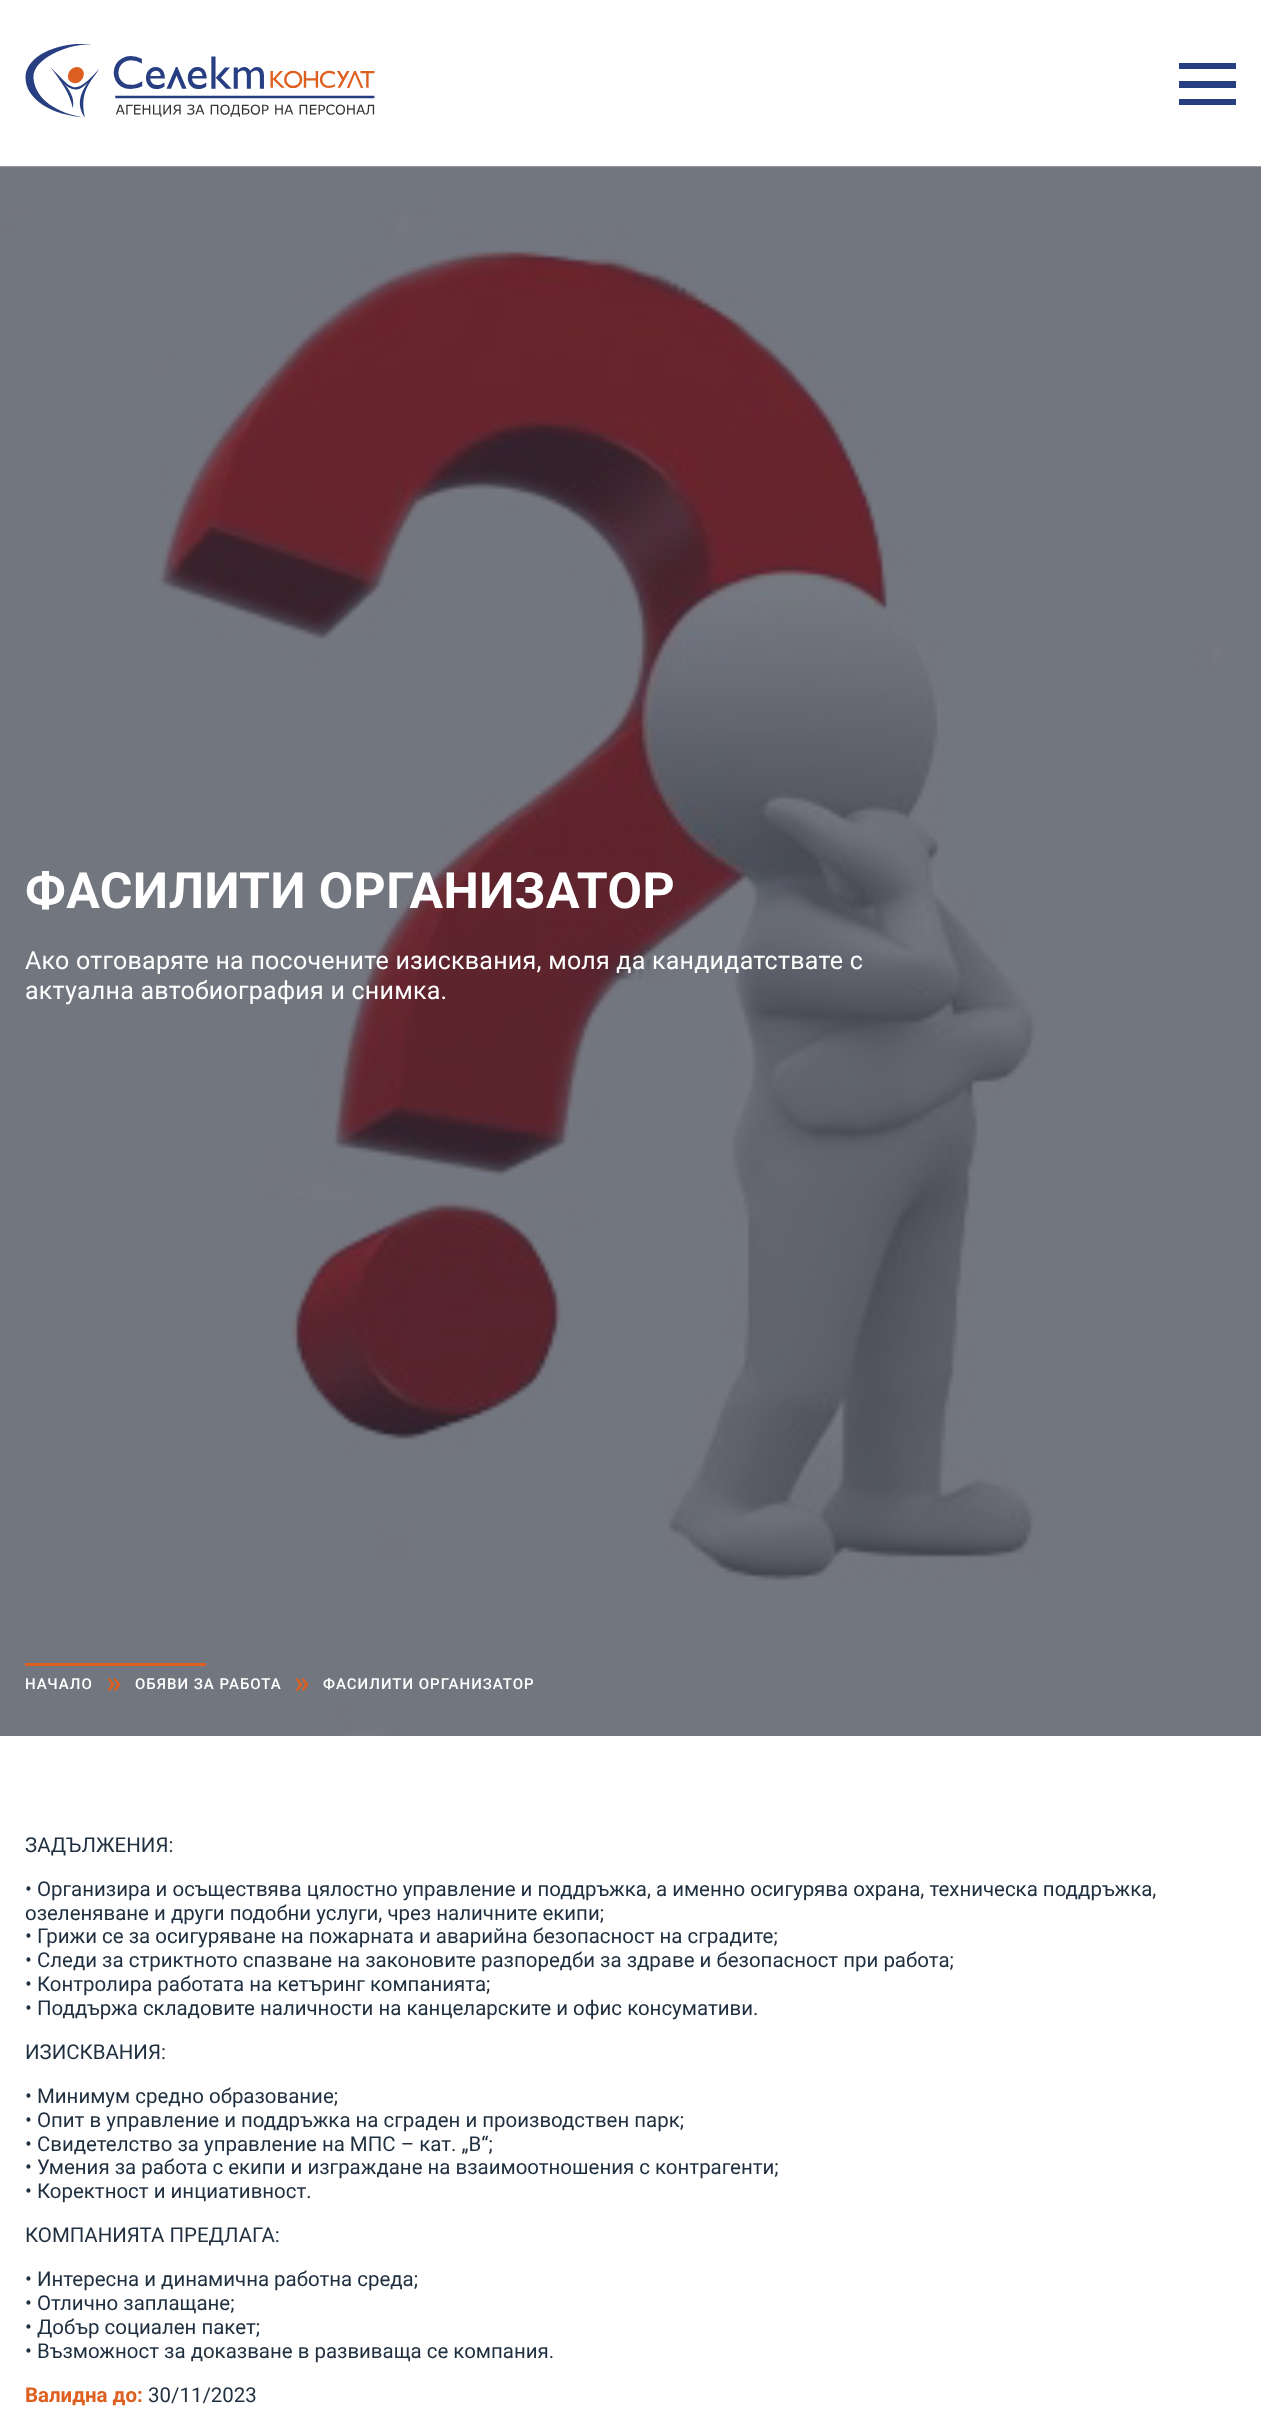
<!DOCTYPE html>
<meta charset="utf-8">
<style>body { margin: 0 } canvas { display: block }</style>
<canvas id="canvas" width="1261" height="2416"></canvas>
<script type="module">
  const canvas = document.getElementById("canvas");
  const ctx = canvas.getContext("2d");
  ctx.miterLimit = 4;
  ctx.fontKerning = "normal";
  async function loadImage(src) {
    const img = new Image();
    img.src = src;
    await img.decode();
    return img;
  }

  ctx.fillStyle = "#ffffff";
  ctx.fillRect(0, 0, 1261, 2416);
  ctx.drawImage(await loadImage("img1.png"), 25, 44, 350, 74);
  ctx.fillStyle = "#273e81";
  ctx.fillRect(1179, 63, 57, 6);
  ctx.fillRect(1179, 99, 57, 6);
  ctx.fillRect(1179, 81, 57, 7);
  ctx.drawImage(await loadImage("img2.png"), 0, 166, 1261, 1570);
  ctx.letterSpacing = "0.4px";
  ctx.font = "bold 50px Roboto";
  ctx.fillStyle = "#ffffff";
  ctx.fillText("ФАСИЛИТИ ОРГАНИЗАТОР", 25, 908);
  ctx.letterSpacing = "0.25px";
  ctx.font = "25px Roboto";
  ctx.fillText("Ако отговаряте на посочените изисквания, моля да кандидатствате с", 25, 969);
  ctx.fillText("актуална автобиография и снимка.", 25, 999);
  ctx.fillStyle = "#dd6020";
  ctx.fillRect(25, 1663, 181, 3);
  ctx.letterSpacing = "1px";
  ctx.font = "500 15px Roboto";
  ctx.fillStyle = "#ffffff";
  ctx.fillText("НАЧАЛО", 25, 1689);
  ctx.font = "500 32px Roboto";
  ctx.fillStyle = "#dd6020";
  ctx.fillText("»", 106, 1693);
  ctx.font = "500 15px Roboto";
  ctx.fillStyle = "#ffffff";
  ctx.fillText("ОБЯВИ ЗА РАБОТА", 135, 1689);
  ctx.font = "500 32px Roboto";
  ctx.fillStyle = "#dd6020";
  ctx.fillText("»", 294, 1693);
  ctx.font = "500 15px Roboto";
  ctx.fillStyle = "#ffffff";
  ctx.fillText("ФАСИЛИТИ ОРГАНИЗАТОР", 323, 1689);
  ctx.letterSpacing = "0px";
  ctx.font = "20.45px Roboto";
  ctx.fillStyle = "#1f2f3f";
  ctx.fillText("ЗАДЪЛЖЕНИЯ:", 25, 1852);
  ctx.fillText("• Организира и осъществява цялостно управление и поддръжка, а именно осигурява охрана, техническа поддръжка,", 25, 1896);
  ctx.fillText("озеленяване и други подобни услуги, чрез наличните екипи;", 25, 1920);
  ctx.fillText("• Грижи се за осигуряване на пожарната и аварийна безопасност на сградите;", 25, 1943);
  ctx.fillText("• Следи за стриктното спазване на законовите разпоредби за здраве и безопасност при работа;", 25, 1967);
  ctx.fillText("• Контролира работата на кетъринг компанията;", 25, 1991);
  ctx.fillText("• Поддържа складовите наличности на канцеларските и офис консумативи.", 25, 2015);
  ctx.fillText("ИЗИСКВАНИЯ:", 25, 2059);
  ctx.fillText("• Минимум средно образование;", 25, 2103);
  ctx.fillText("• Опит в управление и поддръжка на сграден и производствен парк;", 25, 2127);
  ctx.fillText("• Свидетелство за управление на МПС – кат. „В“;", 25, 2151);
  ctx.fillText("• Умения за работа с екипи и изграждане на взаимоотношения с контрагенти;", 25, 2174);
  ctx.fillText("• Коректност и инциативност.", 25, 2198);
  ctx.fillText("КОМПАНИЯТА ПРЕДЛАГА:", 25, 2242);
  ctx.fillText("• Интересна и динамична работна среда;", 25, 2286);
  ctx.fillText("• Отлично заплащане;", 25, 2310);
  ctx.fillText("• Добър социален пакет;", 25, 2334);
  ctx.fillText("• Възможност за доказване в развиваща се компания.", 25, 2358);
  ctx.font = "bold 20.45px Roboto";
  ctx.fillStyle = "#dd6020";
  ctx.fillText("Валидна до:", 25, 2402);
  ctx.font = "20.45px Roboto";
  ctx.fillStyle = "#1f2f3f";
  ctx.fillText("30/11/2023", 148, 2402);
</script>
